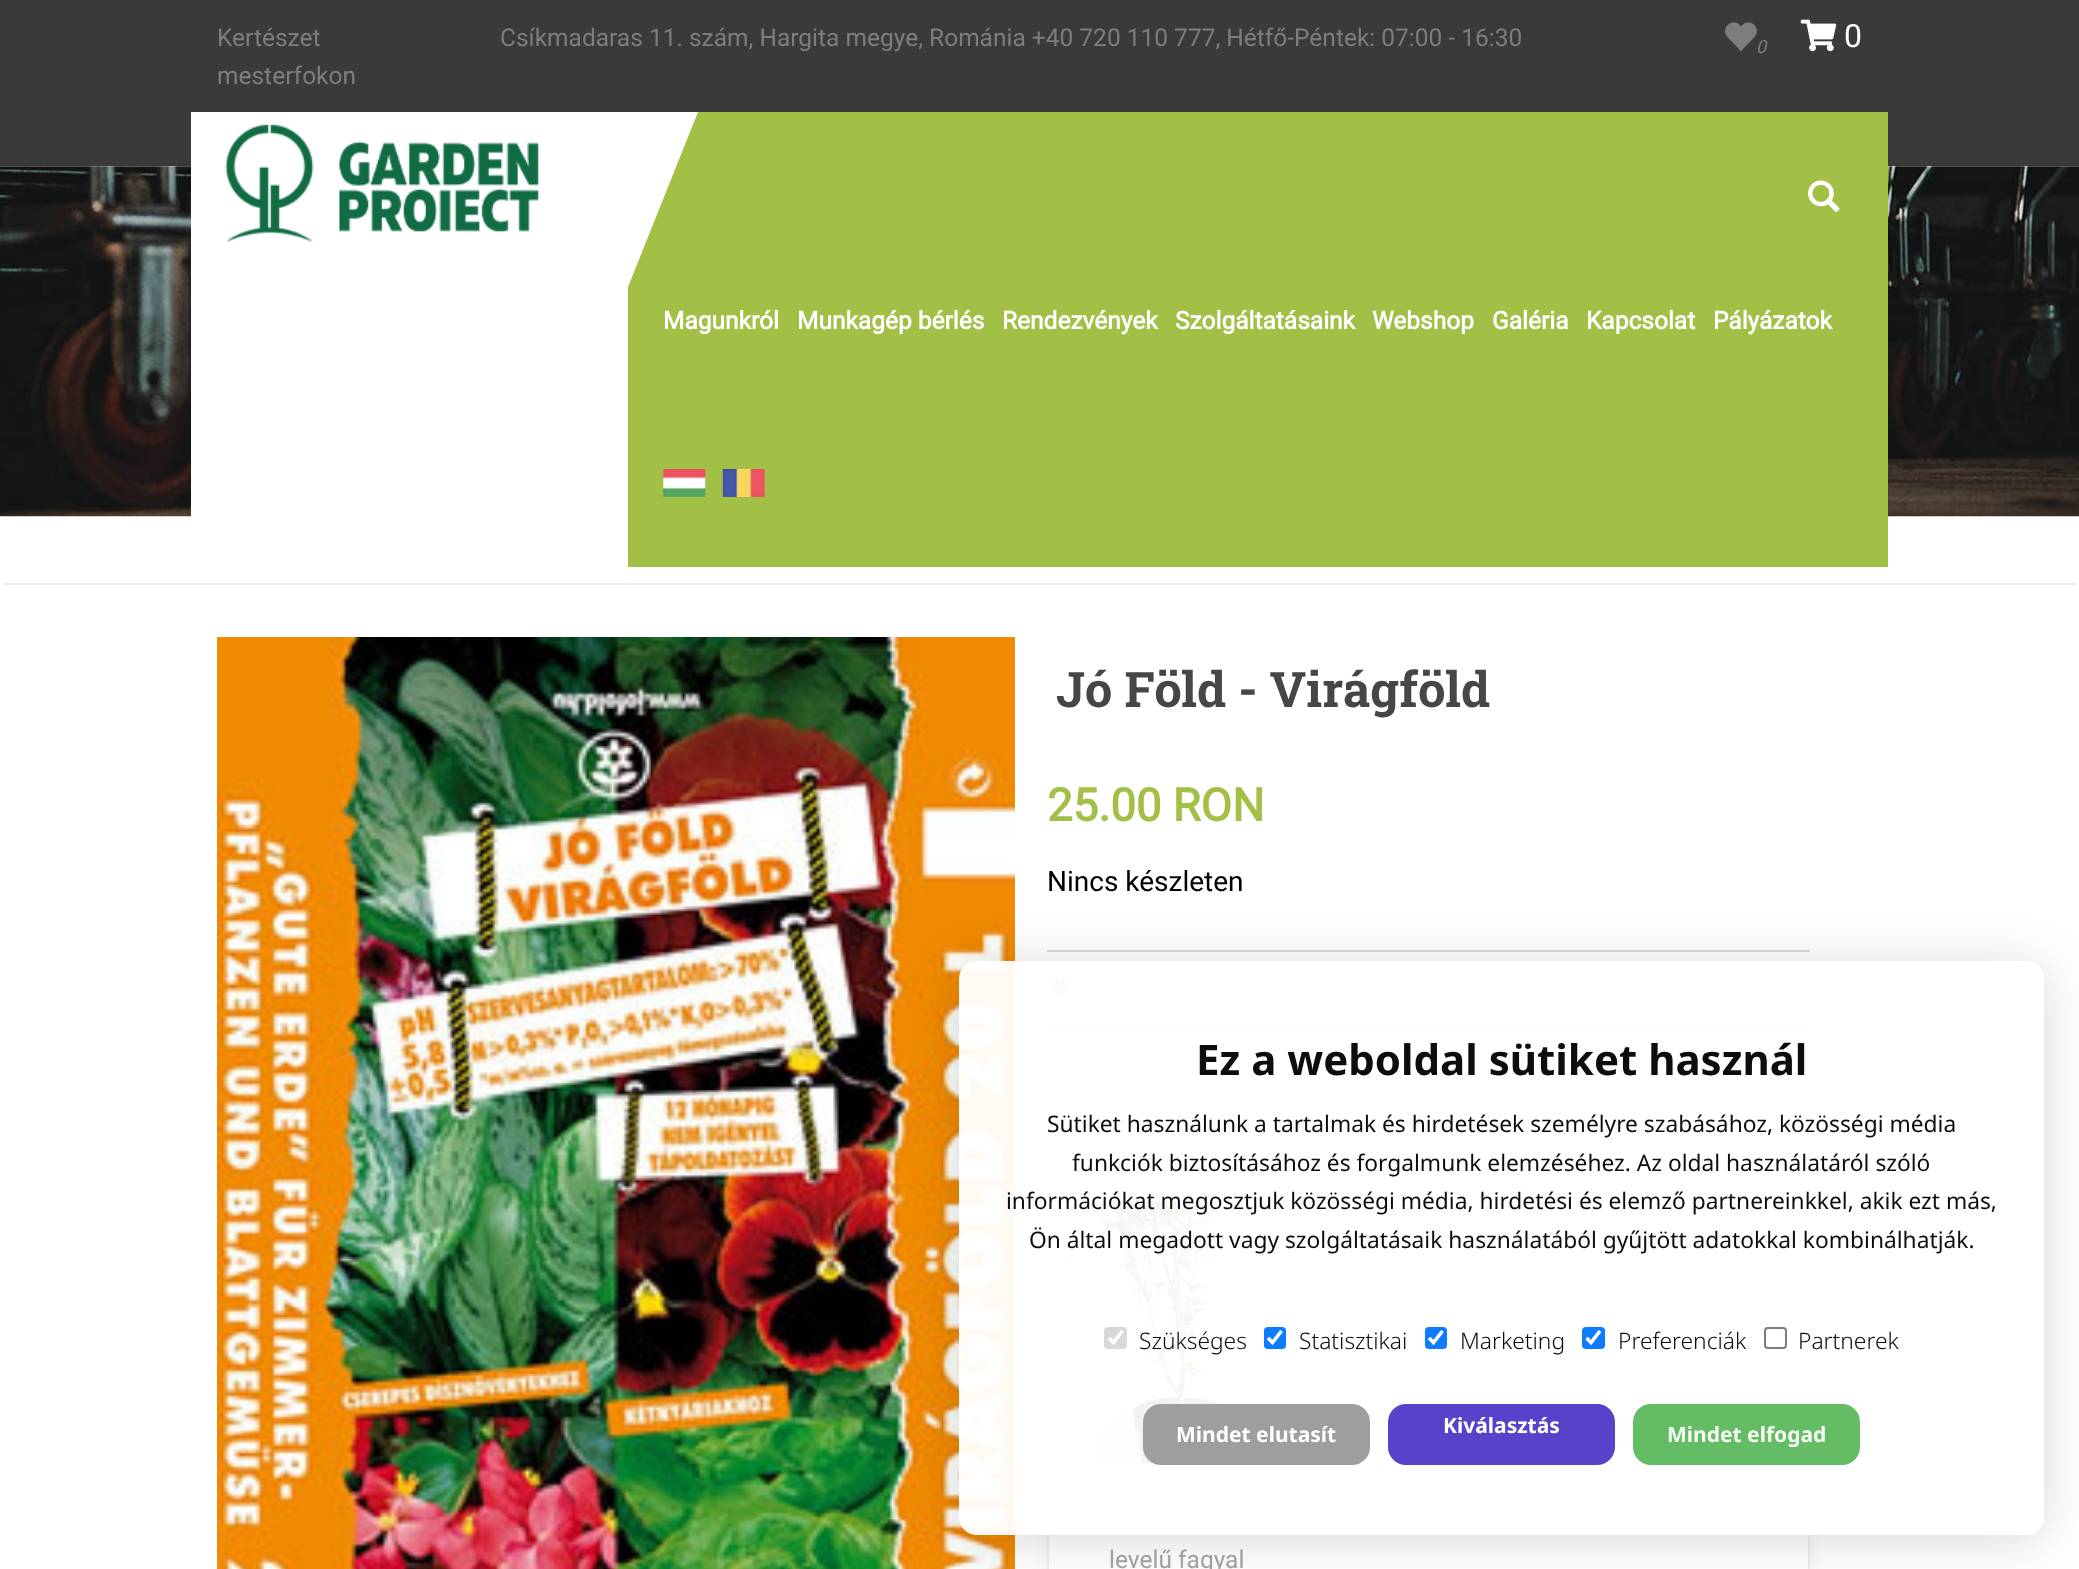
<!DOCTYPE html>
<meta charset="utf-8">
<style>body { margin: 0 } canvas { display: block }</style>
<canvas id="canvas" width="2079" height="1569"></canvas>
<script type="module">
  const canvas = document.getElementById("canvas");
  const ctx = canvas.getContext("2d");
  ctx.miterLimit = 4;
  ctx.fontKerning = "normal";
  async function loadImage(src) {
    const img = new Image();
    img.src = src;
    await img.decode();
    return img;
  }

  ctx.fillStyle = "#ffffff";
  ctx.fillRect(0, 0, 2079, 1569);
  ctx.fillStyle = "#3a3a3a";
  ctx.fillRect(0, 0, 2079, 166);
  ctx.font = "24.5px Roboto";
  ctx.fillStyle = "#7d7d7d";
  ctx.fillText("Kertészet", 217, 46);
  ctx.fillText("mesterfokon", 217, 84);
  ctx.fillText("Csíkmadaras 11. szám, Hargita megye, Románia +40 720 110 777, Hétfő-Péntek: 07:00 - 16:30", 500, 46);
  ctx.drawImage(await loadImage("img1.png"), 1725, 22, 32, 30);
  ctx.font = "italic 18px Roboto";
  ctx.fillText("0", 1756, 53);
  ctx.drawImage(await loadImage("img2.png"), 1800, 19, 37, 33);
  ctx.font = "32px Roboto";
  ctx.fillStyle = "#ffffff";
  ctx.fillText("0", 1844, 47);
  ctx.drawImage(await loadImage("img7.png"), 0, 166, 2079, 351);
  ctx.fillRect(191, 112, 437, 405);
  ctx.drawImage(await loadImage("img3.png"), 225, 124, 314, 119);
  ctx.fillStyle = "#a2c046";
  ctx.fillRect(628, 112, 1260, 455);
  ctx.fillStyle = "#ffffff";
  ctx.beginPath();
  ctx.moveTo(628, 287);
  ctx.lineTo(628, 112);
  ctx.lineTo(698, 112);
  ctx.closePath();
  ctx.fill();
  ctx.drawImage(await loadImage("img4.png"), 1808, 180, 32, 32);
  ctx.font = "bold 24.5px Roboto";
  ctx.fillText("Magunkról", 663, 329);
  ctx.fillText("Munkagép bérlés", 797, 329);
  ctx.fillText("Rendezvények", 1002, 329);
  ctx.fillText("Szolgáltatásaink", 1175, 329);
  ctx.fillText("Webshop", 1372, 329);
  ctx.fillText("Galéria", 1492, 329);
  ctx.fillText("Kapcsolat", 1586, 329);
  ctx.fillText("Pályázatok", 1713, 329);
  ctx.drawImage(await loadImage("img5.png"), 663, 469, 43, 28);
  ctx.drawImage(await loadImage("img6.png"), 722, 469, 43, 28);
  ctx.fillStyle = "#eeeeee";
  ctx.fillRect(4, 583, 2072, 2);
  ctx.drawImage(await loadImage("img8.png"), 217, 637, 798, 932);
  ctx.font = "bold 49px Roboto Slab";
  ctx.fillStyle = "#464646";
  ctx.fillText("Jó Föld - Virágföld", 1056, 707);
  ctx.font = "bold 45.5px Roboto";
  ctx.fillStyle = "#a2c046";
  ctx.fillText("25.00 RON", 1047, 821);
  ctx.font = "28px Roboto";
  ctx.fillStyle = "#000000";
  ctx.fillText("Nincs készleten", 1047, 891);
  ctx.fillStyle = "#dddddd";
  ctx.fillRect(1047, 950, 763, 2);
  ctx.fillRect(1047, 1026, 763, 2);
  ctx.drawImage(await loadImage("img9.png"), 1048, 977, 23, 21);
  ctx.fillStyle = "rgba(0, 0, 0, 0.1)";
  ctx.filter = "blur(10.5px)";
  ctx.beginPath();
  ctx.rect(1054, 1108, 749, 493);
  ctx.fill();
  ctx.filter = "none";
  ctx.fillStyle = "#ffffff";
  ctx.beginPath();
  ctx.roundRect(1048, 1098, 761, 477, 4);
  ctx.fill();
  ctx.strokeStyle = "#eeeeee";
  ctx.lineWidth = 2;
  ctx.stroke();
  ctx.drawImage(await loadImage("img10.png"), 1057, 1200, 176, 263);
  ctx.font = "24.5px Roboto";
  ctx.fillStyle = "#a5a5a5";
  ctx.fillText("levelű fagyal", 1109, 1568);
  ctx.save();
  ctx.beginPath();
  ctx.moveTo(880, 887);
  ctx.lineTo(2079, 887);
  ctx.lineTo(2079, 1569);
  ctx.lineTo(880, 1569);
  ctx.closePath();
  ctx.moveTo(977, 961);
  ctx.lineTo(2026, 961);
  ctx.bezierCurveTo(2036, 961, 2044, 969, 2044, 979);
  ctx.lineTo(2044, 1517);
  ctx.bezierCurveTo(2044, 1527, 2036, 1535, 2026, 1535);
  ctx.lineTo(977, 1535);
  ctx.bezierCurveTo(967, 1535, 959, 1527, 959, 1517);
  ctx.lineTo(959, 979);
  ctx.bezierCurveTo(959, 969, 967, 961, 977, 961);
  ctx.closePath();
  ctx.clip("evenodd");
  ctx.fillStyle = "rgba(0, 0, 0, 0.15)";
  ctx.filter = "blur(26px)";
  ctx.beginPath();
  ctx.roundRect(959, 966, 1085, 574, 18);
  ctx.fill();
  ctx.filter = "none";
  ctx.restore();
  ctx.fillStyle = "rgba(255, 255, 255, 0.95)";
  ctx.beginPath();
  ctx.roundRect(959, 961, 1085, 574, 18);
  ctx.fill();
  ctx.font = "bold 42px Noto Sans";
  ctx.fillStyle = "#0d0d0d";
  ctx.fillText("Ez a weboldal sütiket használ", 1196, 1075);
  ctx.font = "22.75px Noto Sans";
  ctx.fillText("Sütiket használunk a tartalmak és hirdetések személyre szabásához, közösségi média", 1047, 1132);
  ctx.fillText("funkciók biztosításához és forgalmunk elemzéséhez. Az oldal használatáról szóló", 1072, 1171);
  ctx.fillText("információkat megosztjuk közösségi média, hirdetési és elemző partnereinkkel, akik ezt más,", 1006, 1209);
  ctx.fillText("Ön által megadott vagy szolgáltatásaik használatából gyűjtött adatokkal kombinálhatják.", 1029, 1248);
  ctx.fillStyle = "#d8d8d8";
  ctx.beginPath();
  ctx.roundRect(1104, 1327, 23, 22, 4);
  ctx.fill();
  ctx.beginPath();
  ctx.moveTo(1109, 1338);
  ctx.lineTo(1113.5, 1342.5);
  ctx.lineTo(1122.5, 1331);
  ctx.strokeStyle = "#fdfdfd";
  ctx.lineWidth = 3.6;
  ctx.stroke();
  ctx.font = "300 22.75px Noto Sans";
  ctx.fillStyle = "#0d0d0d";
  ctx.fillText("Szükséges", 1139, 1349);
  ctx.fillStyle = "#0d7cff";
  ctx.beginPath();
  ctx.roundRect(1264, 1327, 22, 22, 4);
  ctx.fill();
  ctx.beginPath();
  ctx.moveTo(1268, 1338);
  ctx.lineTo(1272.5, 1342.5);
  ctx.lineTo(1281.5, 1331);
  ctx.strokeStyle = "#ffffff";
  ctx.stroke();
  ctx.fillStyle = "#0d0d0d";
  ctx.fillText("Statisztikai", 1299, 1349);
  ctx.fillStyle = "#0d7cff";
  ctx.beginPath();
  ctx.roundRect(1425, 1327, 22, 22, 4);
  ctx.fill();
  ctx.beginPath();
  ctx.moveTo(1429, 1338);
  ctx.lineTo(1433.5, 1342.5);
  ctx.lineTo(1442.5, 1331);
  ctx.stroke();
  ctx.fillStyle = "#0d0d0d";
  ctx.fillText("Marketing", 1460, 1349);
  ctx.fillStyle = "#0d7cff";
  ctx.beginPath();
  ctx.roundRect(1582, 1327, 23, 22, 4);
  ctx.fill();
  ctx.beginPath();
  ctx.moveTo(1586.5, 1338);
  ctx.lineTo(1591, 1342.5);
  ctx.lineTo(1600, 1331);
  ctx.stroke();
  ctx.fillStyle = "#0d0d0d";
  ctx.fillText("Preferenciák", 1618, 1349);
  ctx.beginPath();
  ctx.roundRect(1765, 1328, 21, 20, 3);
  ctx.strokeStyle = "#7d7d7d";
  ctx.lineWidth = 2;
  ctx.stroke();
  ctx.fillText("Partnerek", 1798, 1349);
  ctx.fillStyle = "rgba(153, 153, 153, 0.95)";
  ctx.beginPath();
  ctx.roundRect(1143, 1404, 227, 61, 18);
  ctx.fill();
  ctx.font = "bold 21px Noto Sans";
  ctx.fillStyle = "#ffffff";
  ctx.fillText("Mindet elutasít", 1176, 1442);
  ctx.fillStyle = "#5742ca";
  ctx.beginPath();
  ctx.roundRect(1388, 1404, 227, 61, 18);
  ctx.fill();
  ctx.fillStyle = "#ffffff";
  ctx.fillText("Kiválasztás", 1443, 1433);
  ctx.fillStyle = "#64bc64";
  ctx.beginPath();
  ctx.roundRect(1633, 1404, 227, 61, 18);
  ctx.fill();
  ctx.fillStyle = "#f7fcf7";
  ctx.fillText("Mindet elfogad", 1667, 1442);
</script>
